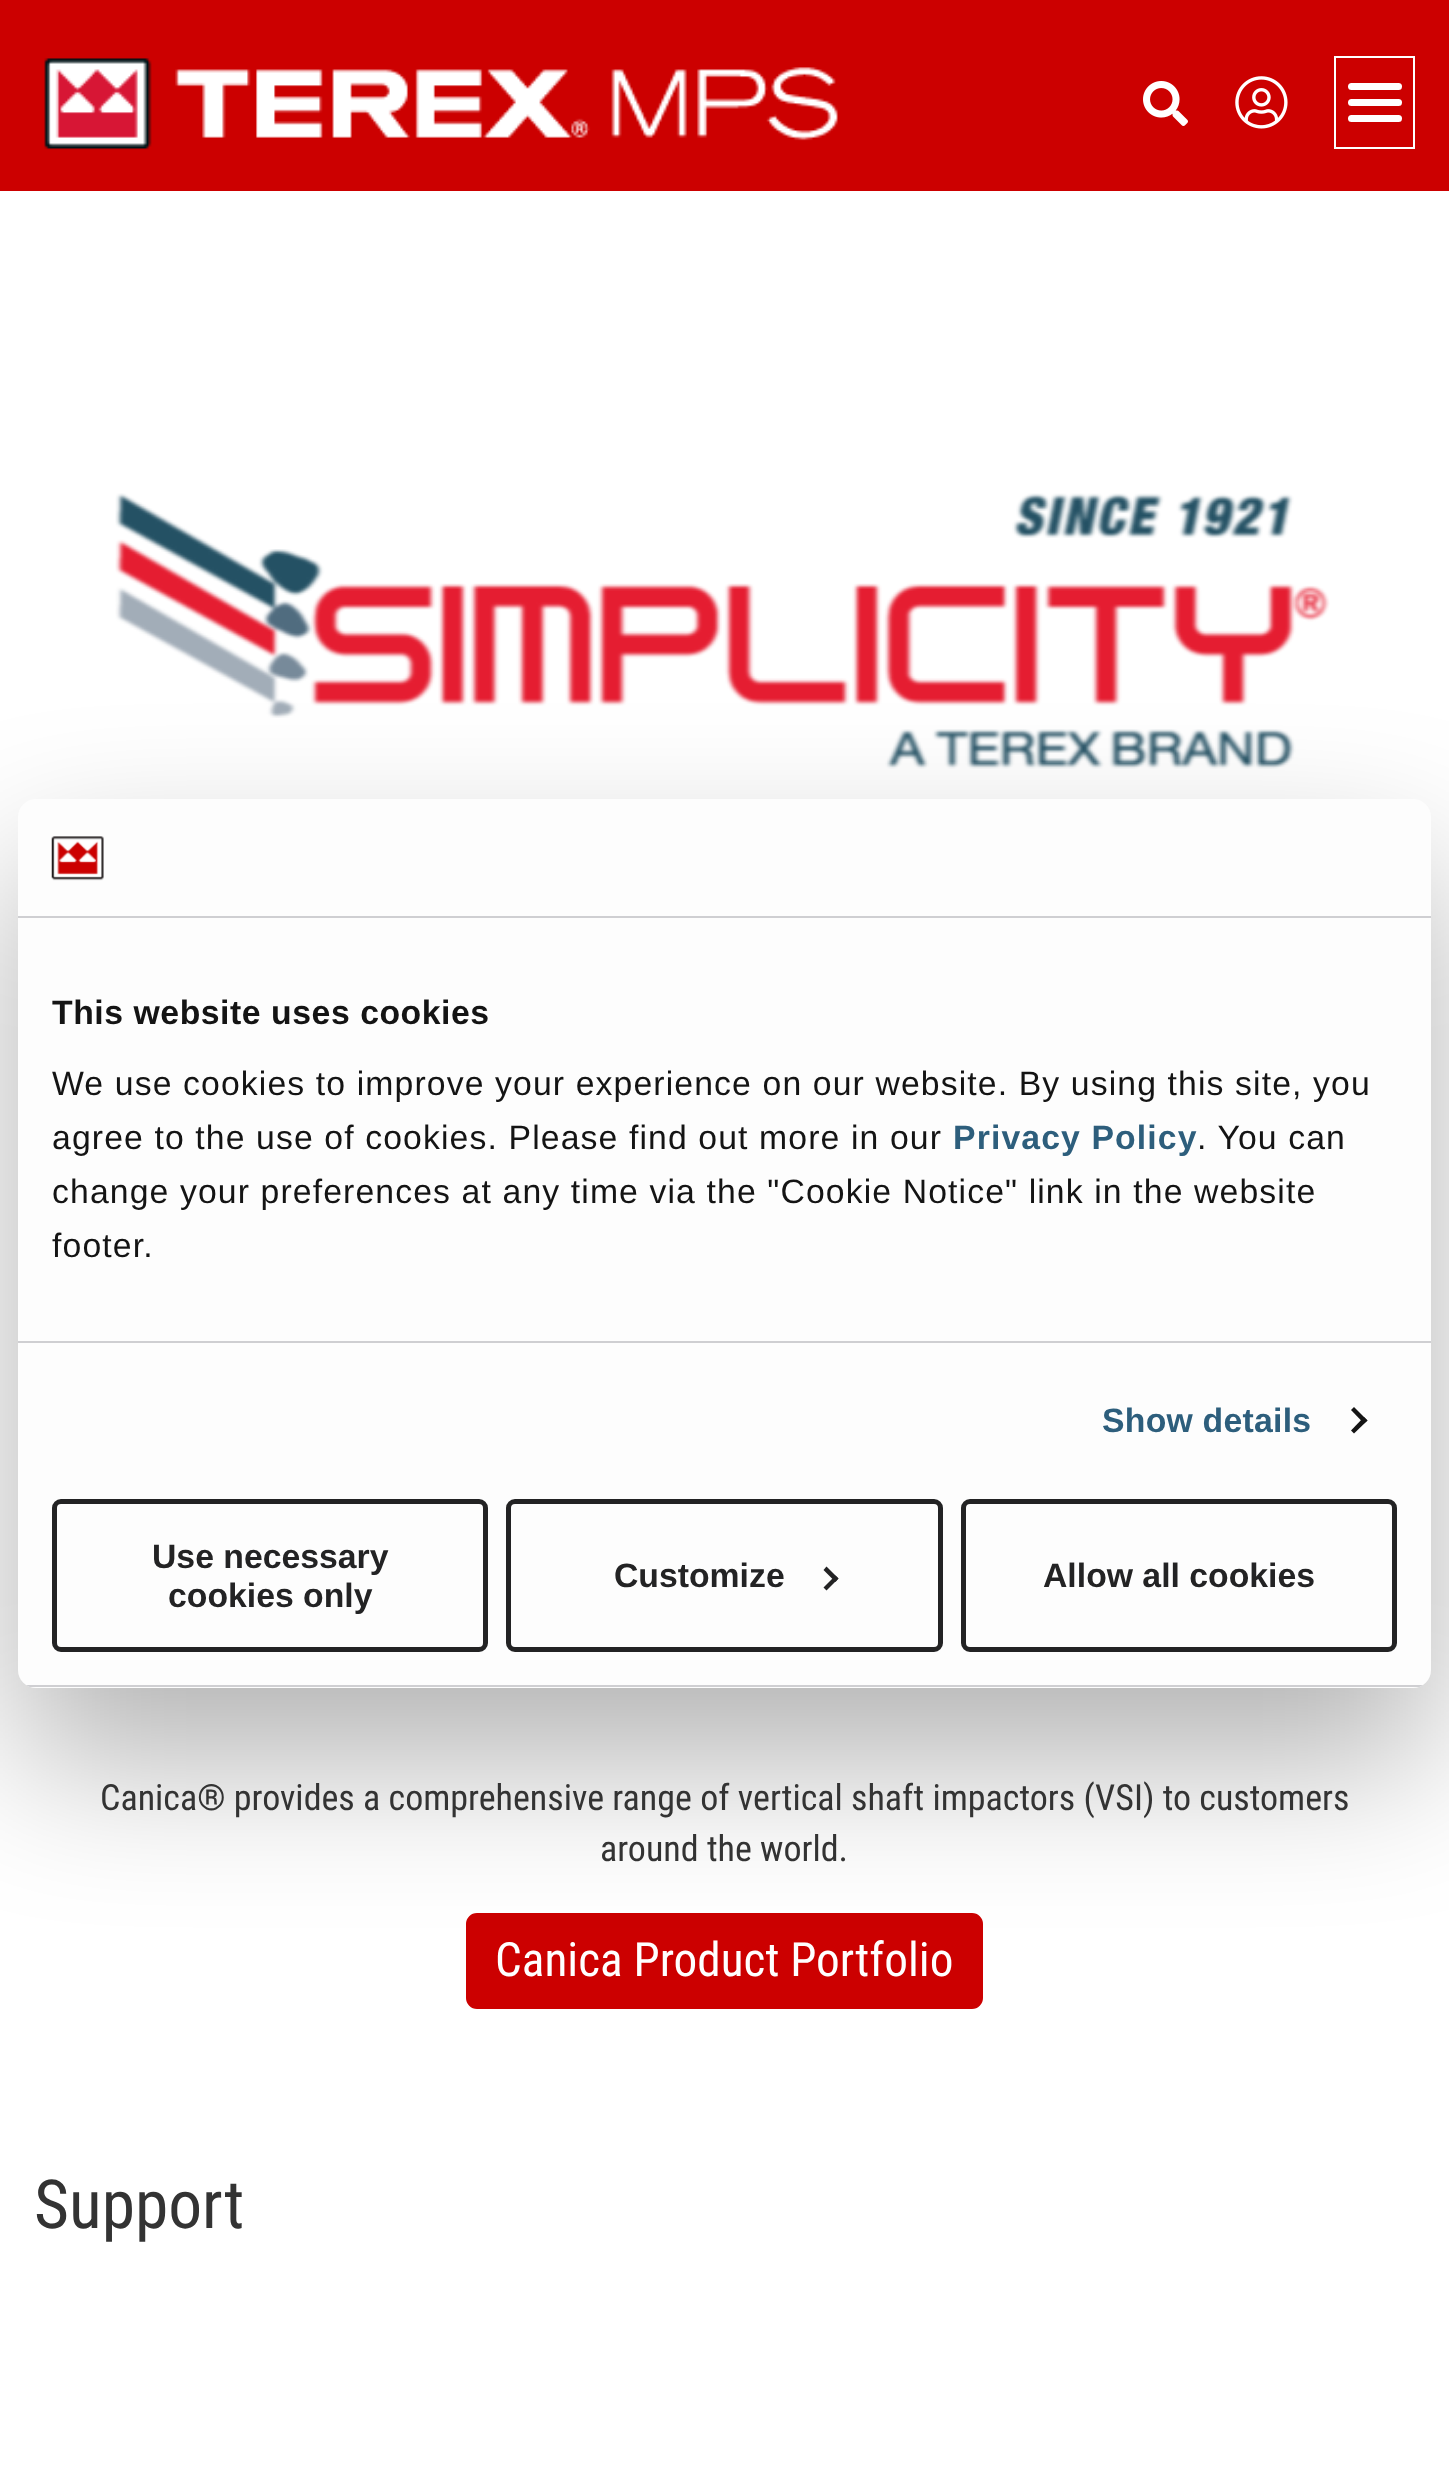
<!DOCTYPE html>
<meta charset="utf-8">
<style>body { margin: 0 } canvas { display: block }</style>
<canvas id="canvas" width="1449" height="2486"></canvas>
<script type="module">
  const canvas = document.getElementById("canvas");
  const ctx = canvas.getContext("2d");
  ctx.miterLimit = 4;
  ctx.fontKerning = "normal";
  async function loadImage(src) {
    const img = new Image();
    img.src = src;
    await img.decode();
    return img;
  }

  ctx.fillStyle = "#ffffff";
  ctx.fillRect(0, 0, 1449, 2486);
  ctx.drawImage(await loadImage("img5.png"), 115, 493, 1215, 276);
  ctx.fillStyle = "#cc0000";
  ctx.beginPath();
  ctx.roundRect(467, 1914, 515, 94, 10);
  ctx.fill();
  ctx.strokeStyle = "#cc0000";
  ctx.lineWidth = 2;
  ctx.stroke();
  ctx.fillStyle = "rgba(0, 0, 0, 0.3)";
  ctx.filter = "blur(76.5px)";
  ctx.beginPath();
  ctx.roundRect(18, 871, 1413, 889, 18);
  ctx.fill();
  ctx.filter = "none";
  ctx.fillStyle = "#fdfdfd";
  ctx.beginPath();
  ctx.roundRect(18, 799, 1413, 889, 18);
  ctx.fill();
  ctx.fillStyle = "#cfcfd2";
  ctx.fillRect(18, 916, 1413, 2);
  ctx.drawImage(await loadImage("img1.png"), 51, 836, 53, 45);
  ctx.fillRect(18, 1341, 1413, 2);
  ctx.letterSpacing = "0.55px";
  ctx.font = "bold 33.75px Liberation Sans";
  ctx.fillStyle = "#141414";
  ctx.fillText("This website uses cookies", 52, 1024);
  ctx.letterSpacing = "1.12px";
  ctx.font = "33.75px Liberation Sans";
  ctx.fillText("We use cookies to improve your experience on our website. By using this site, you", 52, 1095);
  ctx.fillText("agree to the use of cookies. Please find out more in our", 52, 1149);
  ctx.font = "bold 33.75px Liberation Sans";
  ctx.fillStyle = "#2d5e7c";
  ctx.fillText("Privacy Policy", 953, 1149);
  ctx.font = "33.75px Liberation Sans";
  ctx.fillStyle = "#141414";
  ctx.fillText(". You can", 1197, 1149);
  ctx.fillText("change your preferences at any time via the \"Cookie Notice\" link in the website", 52, 1203);
  ctx.fillText("footer.", 52, 1257);
  ctx.letterSpacing = "0.25px";
  ctx.font = "bold 33.75px Liberation Sans";
  ctx.fillStyle = "#2d5e7c";
  ctx.fillText("Show details", 1102, 1432);
  ctx.fillStyle = "#141414";
  ctx.beginPath();
  ctx.moveTo(1354, 1407);
  ctx.lineTo(1367.5, 1420.5);
  ctx.lineTo(1364, 1423.5);
  ctx.lineTo(1351, 1410);
  ctx.closePath();
  ctx.fill();
  ctx.beginPath();
  ctx.moveTo(1364, 1417);
  ctx.lineTo(1367.5, 1420.5);
  ctx.lineTo(1354, 1433.5);
  ctx.lineTo(1351, 1430.5);
  ctx.closePath();
  ctx.fill();
  ctx.save();
  ctx.beginPath();
  ctx.roundRect(18, 799, 1413, 889, 18);
  ctx.clip();
  ctx.fillStyle = "#cfcfd2";
  ctx.fillRect(18, 1685, 1413, 2);
  ctx.restore();
  ctx.beginPath();
  ctx.roundRect(54.5, 1501.5, 431, 148, 6.5);
  ctx.strokeStyle = "#232324";
  ctx.lineWidth = 5;
  ctx.stroke();
  ctx.letterSpacing = "0px";
  ctx.fillStyle = "#232324";
  ctx.fillText("Use necessary", 152, 1568);
  ctx.fillText("cookies only", 168, 1607);
  ctx.beginPath();
  ctx.roundRect(508.5, 1501.5, 432, 148, 6.5);
  ctx.stroke();
  ctx.fillText("Customize", 614, 1587);
  ctx.beginPath();
  ctx.moveTo(826.5, 1566.5);
  ctx.lineTo(838.5, 1578.5);
  ctx.lineTo(835.5, 1582);
  ctx.lineTo(823.5, 1570);
  ctx.closePath();
  ctx.fill();
  ctx.beginPath();
  ctx.moveTo(835.5, 1575.5);
  ctx.lineTo(838.5, 1578.5);
  ctx.lineTo(826.5, 1590.5);
  ctx.lineTo(823.5, 1587.5);
  ctx.closePath();
  ctx.fill();
  ctx.beginPath();
  ctx.roundRect(963.5, 1501.5, 431, 148, 6.5);
  ctx.stroke();
  ctx.fillText("Allow all cookies", 1043, 1587);
  ctx.fillStyle = "#cc0000";
  ctx.fillRect(0, 0, 1449, 191);
  ctx.drawImage(await loadImage("img2.png"), 44, 58, 794, 92);
  ctx.drawImage(await loadImage("img3.png"), 1143, 81, 45, 45);
  ctx.drawImage(await loadImage("img4.png"), 1235, 76, 53, 53);
  ctx.strokeStyle = "#ffffff";
  ctx.lineWidth = 2;
  ctx.strokeRect(1335, 57, 79, 91);
  ctx.fillStyle = "#ffffff";
  ctx.beginPath();
  ctx.roundRect(1348, 83, 54, 7, 3.5);
  ctx.fill();
  ctx.beginPath();
  ctx.roundRect(1348, 99, 54, 7, 3.5);
  ctx.fill();
  ctx.beginPath();
  ctx.roundRect(1348, 115, 54, 7, 3.5);
  ctx.fill();
  ctx.font = "36px Roboto Condensed";
  ctx.fillStyle = "#333333";
  ctx.fillText("Canica® provides a comprehensive range of vertical shaft impactors (VSI) to customers", 100, 1810);
  ctx.fillText("around the world.", 600, 1861);
  ctx.font = "47.25px Roboto Condensed";
  ctx.fillStyle = "#ffffff";
  ctx.fillText("Canica Product Portfolio", 495, 1976);
  ctx.font = "67.5px Roboto Condensed";
  ctx.fillStyle = "#333333";
  ctx.fillText("Support", 34, 2228);
</script>
